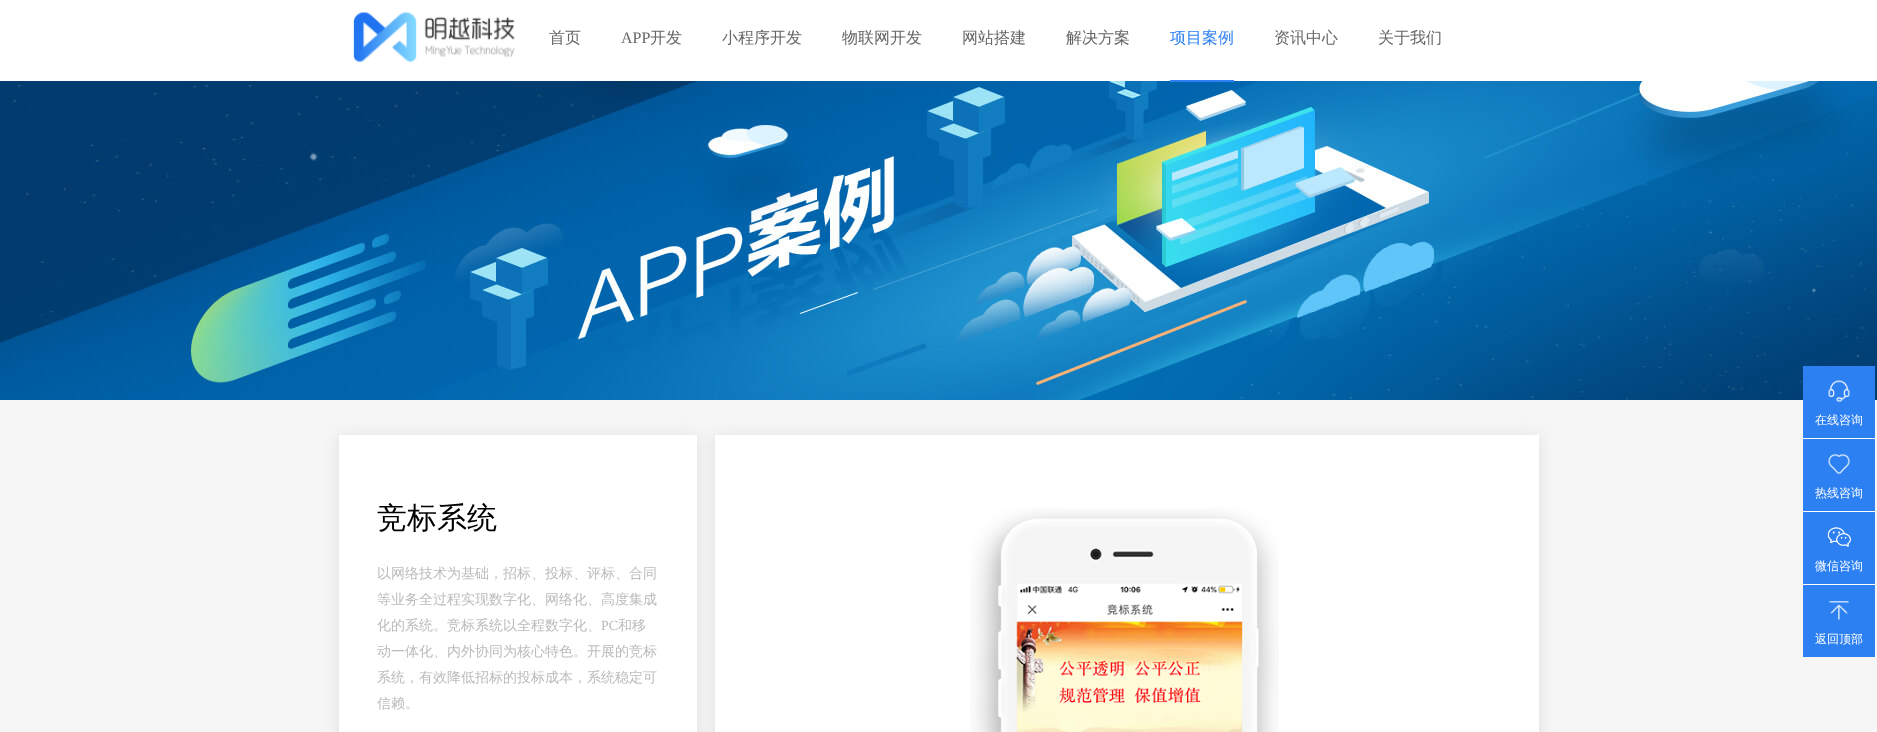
<!DOCTYPE html>
<meta charset="utf-8">
<style>body { margin: 0 } canvas { display: block }</style>
<canvas id="canvas" width="1877" height="732"></canvas>
<script type="module">
  const canvas = document.getElementById("canvas");
  const ctx = canvas.getContext("2d");
  ctx.miterLimit = 4;
  ctx.fontKerning = "normal";
  async function loadImage(src) {
    const img = new Image();
    img.src = src;
    await img.decode();
    return img;
  }

  ctx.fillStyle = "#f6f6f6";
  ctx.fillRect(0, 0, 1877, 732);
  ctx.fillStyle = "#ffffff";
  ctx.fillRect(0, 0, 1877, 81);
  ctx.drawImage(await loadImage("img1.png"), 353, 12, 162, 51);
  ctx.font = "500 16px WenQuanYi Zen Hei";
  ctx.fillStyle = "#666666";
  ctx.fillText("首页", 549, 43);
  ctx.font = "16px Liberation Serif";
  ctx.fillText("APP", 621, 43);
  ctx.font = "500 16px WenQuanYi Zen Hei";
  ctx.fillText("开发", 650, 43);
  ctx.fillText("小程序开发", 722, 43);
  ctx.fillText("物联网开发", 842, 43);
  ctx.fillText("网站搭建", 962, 43);
  ctx.fillText("解决方案", 1066, 43);
  ctx.drawImage(await loadImage("img2.png"), 0, 81, 1877, 319);
  ctx.fillStyle = "#2c80f2";
  ctx.fillRect(1170, 80, 64, 2);
  ctx.fillText("项目案例", 1170, 43);
  ctx.fillStyle = "#666666";
  ctx.fillText("资讯中心", 1274, 43);
  ctx.fillText("关于我们", 1378, 43);
  ctx.fillStyle = "#dddddd";
  ctx.filter = "blur(7.5px)";
  ctx.beginPath();
  ctx.rect(339, 437, 358, 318);
  ctx.fill();
  ctx.filter = "none";
  ctx.fillStyle = "#ffffff";
  ctx.fillRect(339, 435, 358, 297);
  ctx.font = "500 30px WenQuanYi Zen Hei";
  ctx.fillStyle = "#000000";
  ctx.fillText("竞标系统", 377, 528);
  ctx.font = "500 14px WenQuanYi Zen Hei";
  ctx.fillStyle = "#bbbbbb";
  ctx.fillText("以网络技术为基础，招标、投标、评标、合同", 377, 578);
  ctx.fillText("等业务全过程实现数字化、网络化、高度集成", 377, 604);
  ctx.fillText("化的系统。竞标系统以全程数字化、", 377, 630);
  ctx.font = "14px Liberation Serif";
  ctx.fillText("PC", 601, 630);
  ctx.font = "500 14px WenQuanYi Zen Hei";
  ctx.fillText("和移", 618, 630);
  ctx.fillText("动一体化、内外协同为核心特色。开展的竞标", 377, 656);
  ctx.fillText("系统，有效降低招标的投标成本，系统稳定可", 377, 682);
  ctx.fillText("信赖。", 377, 708);
  ctx.fillStyle = "#dddddd";
  ctx.filter = "blur(7.5px)";
  ctx.beginPath();
  ctx.rect(715, 437, 824, 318);
  ctx.fill();
  ctx.filter = "none";
  ctx.fillStyle = "#ffffff";
  ctx.fillRect(715, 435, 824, 297);
  ctx.drawImage(await loadImage("img3.png"), 970, 508, 309, 224);
  ctx.fillStyle = "#2c80f2";
  ctx.fillRect(1803, 366, 72, 72);
  ctx.fillStyle = "#ffffff";
  ctx.fillRect(1803, 438, 72, 1);
  ctx.drawImage(await loadImage("img4.png"), 1828, 380, 22, 22);
  ctx.font = "500 12px WenQuanYi Zen Hei";
  ctx.fillText("在线咨询", 1815, 424);
  ctx.fillStyle = "#2c80f2";
  ctx.fillRect(1803, 439, 72, 72);
  ctx.fillStyle = "#ffffff";
  ctx.fillRect(1803, 511, 72, 1);
  ctx.drawImage(await loadImage("img5.png"), 1828, 454, 22, 20);
  ctx.fillText("热线咨询", 1815, 497);
  ctx.fillStyle = "#2c80f2";
  ctx.fillRect(1803, 512, 72, 72);
  ctx.fillStyle = "#ffffff";
  ctx.fillRect(1803, 584, 72, 1);
  ctx.drawImage(await loadImage("img6.png"), 1827, 527, 24, 20);
  ctx.fillText("微信咨询", 1815, 570);
  ctx.fillStyle = "#2c80f2";
  ctx.fillRect(1803, 585, 72, 72);
  ctx.drawImage(await loadImage("img7.png"), 1829, 601, 20, 19);
  ctx.fillStyle = "#ffffff";
  ctx.fillText("返回顶部", 1815, 643);
</script>
